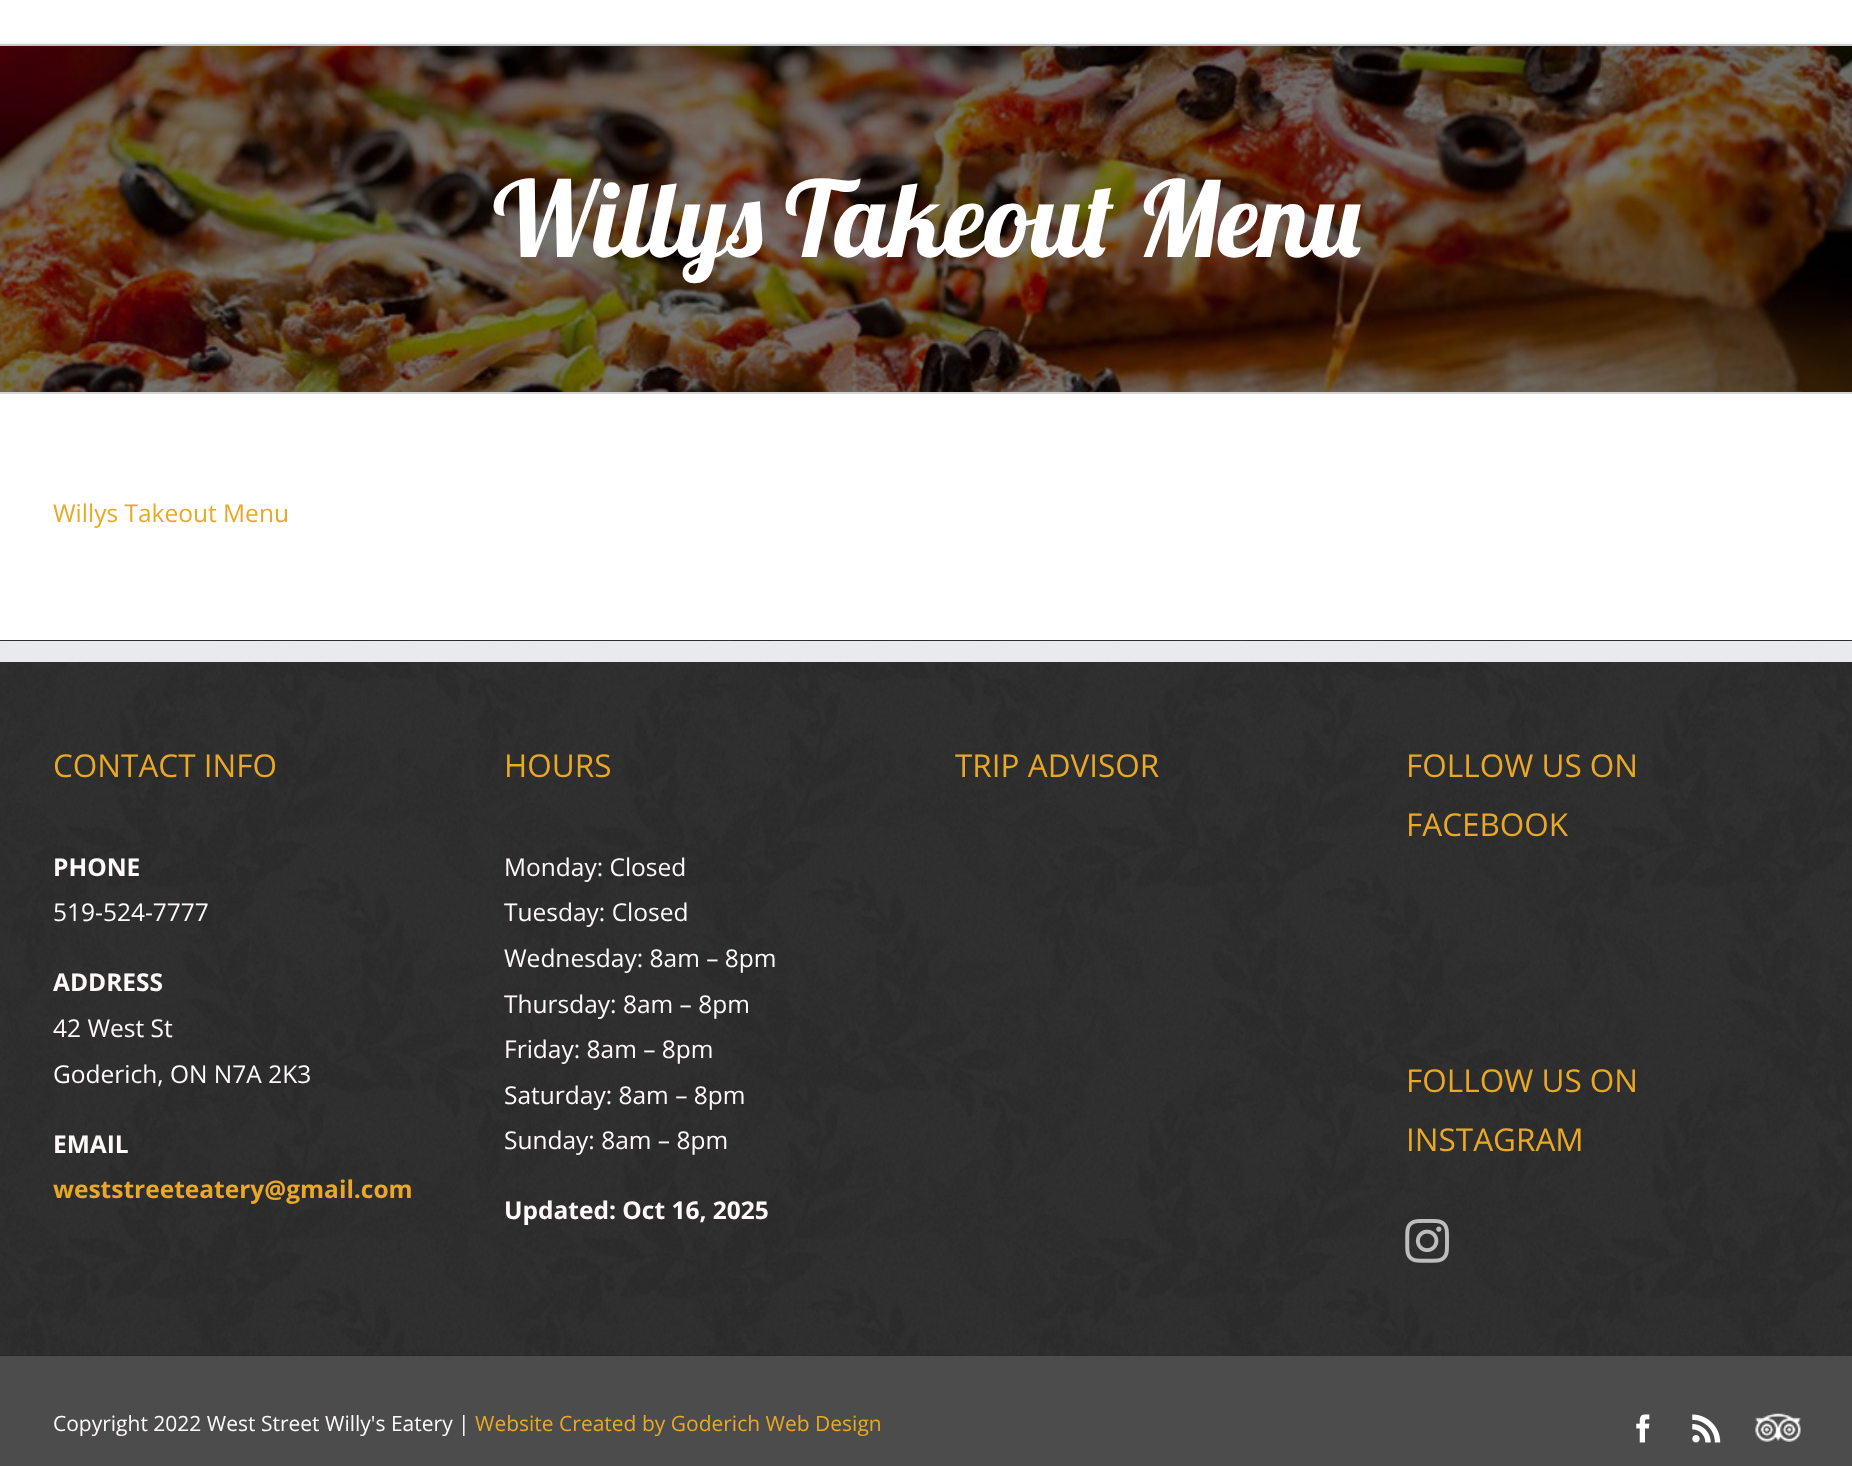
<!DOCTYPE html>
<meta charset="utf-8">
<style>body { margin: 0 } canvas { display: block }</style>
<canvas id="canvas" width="1852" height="1466"></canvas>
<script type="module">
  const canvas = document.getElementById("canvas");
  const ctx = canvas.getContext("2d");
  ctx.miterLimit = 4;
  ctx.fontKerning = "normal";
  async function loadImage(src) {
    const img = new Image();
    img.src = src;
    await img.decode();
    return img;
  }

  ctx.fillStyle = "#ffffff";
  ctx.fillRect(0, 0, 1852, 1466);
  ctx.drawImage(await loadImage("img1.png"), 0, 1355, 1852, 1);
  ctx.drawImage(await loadImage("img2.png"), 0, 46, 1852, 346);
  ctx.fillStyle = "#d2d3d4";
  ctx.fillRect(0, 44, 1852, 2);
  ctx.fillStyle = "rgba(0, 0, 0, 0.14)";
  ctx.filter = "blur(44px)";
  ctx.beginPath();
  ctx.rect(4, -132, 1846, 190);
  ctx.fill();
  ctx.filter = "none";
  ctx.fillStyle = "#ffffff";
  ctx.fillRect(0, 0, 1852, 42);
  ctx.fillStyle = "#f7f7f7";
  ctx.fillRect(0, 42, 1852, 2);
  ctx.fillStyle = "#d2d3d4";
  ctx.fillRect(0, 392, 1852, 2);
  ctx.font = "105px Lobster";
  ctx.fillStyle = "#ffffff";
  ctx.fillText("Willys Takeout Menu", 493, 257);
  ctx.font = "24.5px Open Sans";
  ctx.fillStyle = "#e9a825";
  ctx.fillText("Willys Takeout Menu", 53, 522);
  ctx.drawImage(await loadImage("img3.png"), 0, 640, 1852, 716);
  ctx.fillStyle = "#e9eaee";
  ctx.fillRect(0, 641, 1852, 21);
  ctx.font = "31.5px Open Sans";
  ctx.fillStyle = "#e9a825";
  ctx.fillText("CONTACT INFO", 53, 777);
  ctx.font = "bold 24.5px Open Sans";
  ctx.fillStyle = "#fff9f9";
  ctx.fillText("PHONE", 53, 876);
  ctx.font = "24.5px Open Sans";
  ctx.fillText("519-524-7777", 53, 921);
  ctx.font = "bold 24.5px Open Sans";
  ctx.fillText("ADDRESS", 53, 991);
  ctx.font = "24.5px Open Sans";
  ctx.fillText("42 West St", 53, 1037);
  ctx.fillText("Goderich, ON N7A 2K3", 53, 1083);
  ctx.font = "bold 24.5px Open Sans";
  ctx.fillText("EMAIL", 53, 1153);
  ctx.fillStyle = "#e9a825";
  ctx.fillText("weststreeteatery@gmail.com", 53, 1198);
  ctx.font = "31.5px Open Sans";
  ctx.fillText("HOURS", 504, 777);
  ctx.font = "24.5px Open Sans";
  ctx.fillStyle = "#fff9f9";
  ctx.fillText("Monday: Closed", 504, 876);
  ctx.fillText("Tuesday: Closed", 504, 921);
  ctx.fillText("Wednesday: 8am – 8pm", 504, 967);
  ctx.fillText("Thursday: 8am – 8pm", 504, 1013);
  ctx.fillText("Friday: 8am – 8pm", 504, 1058);
  ctx.fillText("Saturday: 8am – 8pm", 504, 1104);
  ctx.fillText("Sunday: 8am – 8pm", 504, 1149);
  ctx.font = "bold 24.5px Open Sans";
  ctx.fillText("Updated: Oct 16, 2025", 504, 1219);
  ctx.font = "31.5px Open Sans";
  ctx.fillStyle = "#e9a825";
  ctx.fillText("TRIP ADVISOR", 955, 777);
  ctx.fillText("FOLLOW US ON", 1406, 777);
  ctx.fillText("FACEBOOK", 1406, 836);
  ctx.fillText("FOLLOW US ON", 1406, 1092);
  ctx.fillText("INSTAGRAM", 1406, 1151);
  ctx.drawImage(await loadImage("img4.png"), 1405, 1219, 44, 44);
  ctx.fillStyle = "#4c4c4c";
  ctx.fillRect(0, 1356, 1852, 110);
  ctx.font = "21px Open Sans";
  ctx.fillStyle = "#fff9f9";
  ctx.fillText("Copyright 2022 West Street Willy's Eatery |", 53, 1431);
  ctx.fillStyle = "#e9a825";
  ctx.fillText("Website Created by Goderich Web Design", 475, 1431);
  ctx.drawImage(await loadImage("img5.png"), 1636, 1414, 14, 29);
  ctx.drawImage(await loadImage("img6.png"), 1692, 1414, 29, 29);
  ctx.drawImage(await loadImage("img7.png"), 1755, 1413, 46, 29);
</script>
